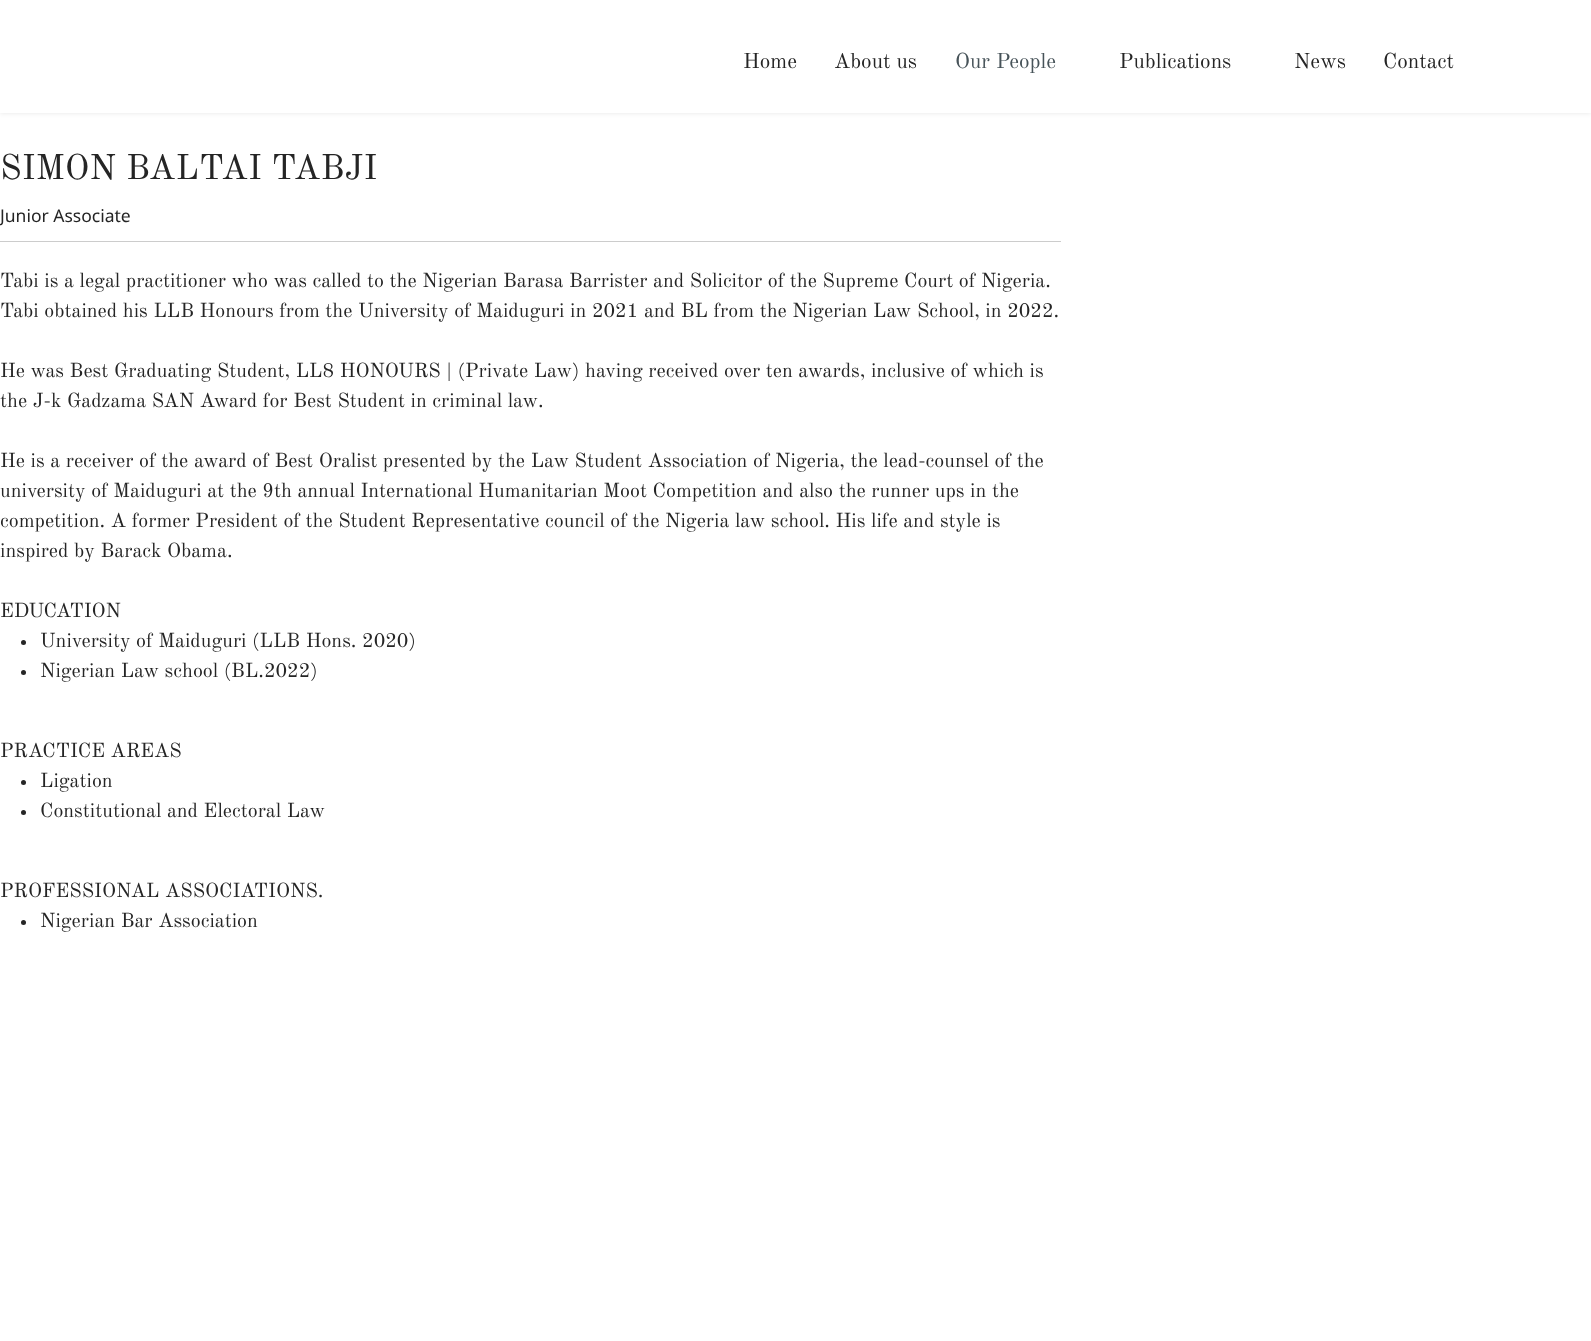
<!DOCTYPE html>
<meta charset="utf-8">
<style>body { margin: 0 } canvas { display: block }</style>
<canvas id="canvas" width="1591" height="1341"></canvas>
<script type="module">
  const canvas = document.getElementById("canvas");
  const ctx = canvas.getContext("2d");
  ctx.miterLimit = 4;
  ctx.fontKerning = "normal";

  ctx.fillStyle = "#ffffff";
  ctx.fillRect(0, 0, 1591, 1341);
  ctx.fillStyle = "rgba(0, 0, 0, 0.1)";
  ctx.filter = "blur(2.5px)";
  ctx.beginPath();
  ctx.rect(0, 0, 1591, 113);
  ctx.fill();
  ctx.filter = "none";
  ctx.fillStyle = "#ffffff";
  ctx.fillRect(0, 0, 1591, 113);
  ctx.font = "21.25px Old Standard TT";
  ctx.fillStyle = "#252525";
  ctx.fillText("Home", 743, 68);
  ctx.fillText("About us", 834, 68);
  ctx.fillStyle = "#475359";
  ctx.fillText("Our People", 955, 68);
  ctx.fillStyle = "#252525";
  ctx.fillText("Publications", 1119, 68);
  ctx.fillText("News", 1294, 68);
  ctx.fillText("Contact", 1383, 68);
  ctx.font = "35px Old Standard TT";
  ctx.fillText("SIMON BALTAI TABJI", 0, 179);
  ctx.font = "17.5px Noto Sans";
  ctx.fillText("Junior Associate", 0, 222);
  ctx.fillStyle = "#cccccc";
  ctx.fillRect(0, 241, 1061, 1);
  ctx.font = "20px Old Standard TT";
  ctx.fillStyle = "#252525";
  ctx.fillText("Tabi is a legal practitioner who was called to the Nigerian Barasa Barrister and Solicitor of the Supreme Court of Nigeria.", 0, 287);
  ctx.fillText("Tabi obtained his LLB Honours from the University of Maiduguri in 2021 and BL from the Nigerian Law School, in 2022.", 0, 317);
  ctx.fillText("He was Best Graduating Student, LL8 HONOURS | (Private Law) having received over ten awards, inclusive of which is", 0, 377);
  ctx.fillText("the J-k Gadzama SAN Award for Best Student in criminal law.", 0, 407);
  ctx.fillText("He is a receiver of the award of Best Oralist presented by the Law Student Association of Nigeria, the lead-counsel of the", 0, 467);
  ctx.fillText("university of Maiduguri at the 9th annual International Humanitarian Moot Competition and also the runner ups in the", 0, 497);
  ctx.fillText("competition. A former President of the Student Representative council of the Nigeria law school. His life and style is", 0, 527);
  ctx.fillText("inspired by Barack Obama.", 0, 557);
  ctx.fillText("EDUCATION", 0, 617);
  ctx.beginPath();
  ctx.arc(23.5, 642.5, 2.5, 0, Math.PI * 2);
  ctx.fill();
  ctx.fillText("University of Maiduguri (LLB Hons. 2020)", 40, 647);
  ctx.beginPath();
  ctx.arc(23.5, 672.5, 2.5, 0, Math.PI * 2);
  ctx.fill();
  ctx.fillText("Nigerian Law school (BL.2022)", 40, 677);
  ctx.fillText("PRACTICE AREAS", 0, 757);
  ctx.beginPath();
  ctx.arc(23.5, 782.5, 2.5, 0, Math.PI * 2);
  ctx.fill();
  ctx.fillText("Ligation", 40, 787);
  ctx.beginPath();
  ctx.arc(23.5, 812.5, 2.5, 0, Math.PI * 2);
  ctx.fill();
  ctx.fillText("Constitutional and Electoral Law", 40, 817);
  ctx.fillText("PROFESSIONAL ASSOCIATIONS.", 0, 897);
  ctx.beginPath();
  ctx.arc(23.5, 922.5, 2.5, 0, Math.PI * 2);
  ctx.fill();
  ctx.fillText("Nigerian Bar Association", 40, 927);
</script>
